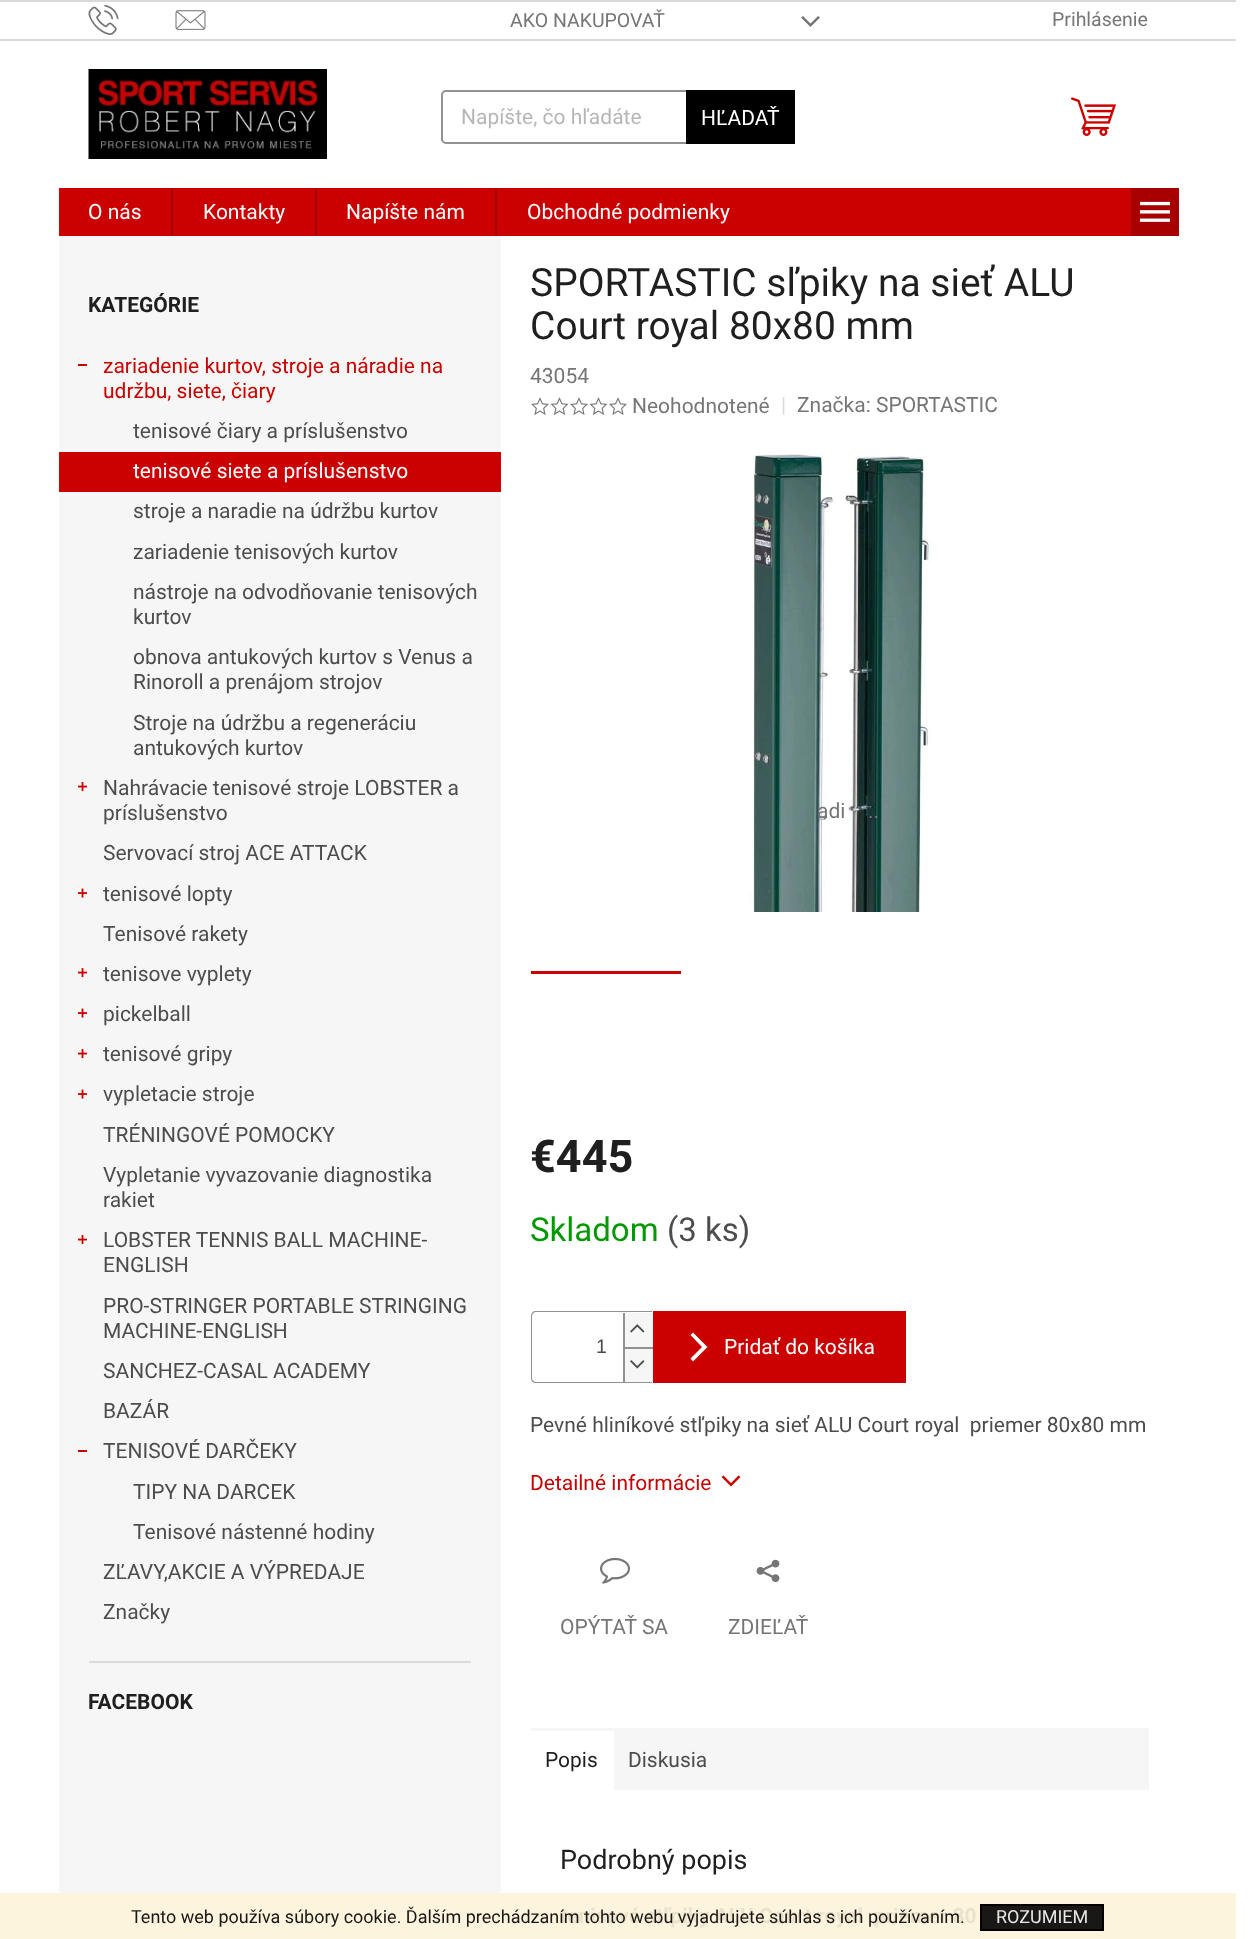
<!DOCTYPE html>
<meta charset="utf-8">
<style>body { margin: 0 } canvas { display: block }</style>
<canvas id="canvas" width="1258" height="1939"></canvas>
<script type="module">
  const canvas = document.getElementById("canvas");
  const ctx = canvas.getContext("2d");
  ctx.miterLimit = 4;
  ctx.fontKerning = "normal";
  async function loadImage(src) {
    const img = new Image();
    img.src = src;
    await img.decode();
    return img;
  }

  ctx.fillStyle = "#ffffff";
  ctx.fillRect(0, 0, 1258, 1939);
  ctx.fillStyle = "#fdf4de";
  ctx.fillRect(0, 1893, 1236, 46);
  ctx.fillStyle = "#dadada";
  ctx.fillRect(0, 0, 1236, 2);
  ctx.fillRect(0, 39, 1236, 2);
  ctx.drawImage(await loadImage("img1.png"), 88, 4, 31, 31);
  ctx.drawImage(await loadImage("img2.png"), 175, 10, 31, 20);
  ctx.font = "19.5px Roboto";
  ctx.fillStyle = "#767676";
  ctx.fillText("AKO NAKUPOVAŤ", 510, 27);
  ctx.beginPath();
  ctx.moveTo(801, 17.5);
  ctx.lineTo(803, 16);
  ctx.lineTo(810.5, 23.5);
  ctx.lineTo(818, 16);
  ctx.lineTo(820, 17.5);
  ctx.lineTo(810.5, 27);
  ctx.closePath();
  ctx.fill();
  ctx.fillText("Prihlásenie", 1052, 26);
  ctx.drawImage(await loadImage("img3.png"), 88, 69, 239, 90);
  ctx.beginPath();
  ctx.roundRect(442, 91, 352, 52, 4);
  ctx.strokeStyle = "#919191";
  ctx.lineWidth = 2;
  ctx.stroke();
  ctx.font = "21px Roboto";
  ctx.fillStyle = "#b6b6b6";
  ctx.fillText("Napíšte, čo hľadáte", 461, 124);
  ctx.fillStyle = "#000000";
  ctx.fillRect(686, 90, 109, 54);
  ctx.fillStyle = "#ffffff";
  ctx.fillText("HĽADAŤ", 701, 125);
  ctx.drawImage(await loadImage("img4.png"), 1071, 97, 45, 39);
  ctx.fillStyle = "#cb0000";
  ctx.fillRect(59, 188, 1072, 48);
  ctx.fillStyle = "#ffffff";
  ctx.fillText("O nás", 88, 219);
  ctx.fillStyle = "#a80000";
  ctx.fillRect(171, 188, 2, 48);
  ctx.fillStyle = "#ffffff";
  ctx.fillText("Kontakty", 203, 219);
  ctx.fillStyle = "#a80000";
  ctx.fillRect(315, 188, 2, 48);
  ctx.fillStyle = "#ffffff";
  ctx.fillText("Napíšte nám", 346, 219);
  ctx.fillStyle = "#a80000";
  ctx.fillRect(495, 188, 2, 48);
  ctx.fillStyle = "#ffffff";
  ctx.fillText("Obchodné podmienky", 527, 219);
  ctx.fillStyle = "#a80000";
  ctx.fillRect(1131, 188, 48, 48);
  ctx.drawImage(await loadImage("img5.png"), 1140, 201, 30, 21);
  ctx.fillStyle = "#f6f6f6";
  ctx.fillRect(59, 236, 442, 1657);
  ctx.fillStyle = "#dadada";
  ctx.fillRect(89, 1661, 382, 2);
  ctx.font = "bold 21px Roboto";
  ctx.fillStyle = "#1f1f1f";
  ctx.fillText("KATEGÓRIE", 88, 312);
  ctx.fillStyle = "#cb0000";
  ctx.fillRect(78, 364, 9, 2);
  ctx.font = "21px Roboto";
  ctx.fillText("zariadenie kurtov, stroje a náradie na", 103, 373);
  ctx.fillText("udržbu, siete, čiary", 103, 398);
  ctx.fillStyle = "#4d4d4d";
  ctx.fillText("tenisové čiary a príslušenstvo", 133, 438);
  ctx.fillStyle = "#cb0000";
  ctx.fillRect(59, 452, 442, 40);
  ctx.fillStyle = "#ffffff";
  ctx.fillText("tenisové siete a príslušenstvo", 133, 478);
  ctx.fillStyle = "#4d4d4d";
  ctx.fillText("stroje a naradie na údržbu kurtov", 133, 518);
  ctx.fillText("zariadenie tenisových kurtov", 133, 559);
  ctx.fillText("nástroje na odvodňovanie tenisových", 133, 599);
  ctx.fillText("kurtov", 133, 624);
  ctx.fillText("obnova antukových kurtov s Venus a", 133, 664);
  ctx.fillText("Rinoroll a prenájom strojov", 133, 689);
  ctx.fillText("Stroje na údržbu a regeneráciu", 133, 730);
  ctx.fillText("antukových kurtov", 133, 755);
  ctx.drawImage(await loadImage("img6.png"), 78, 782, 9, 10);
  ctx.fillText("Nahrávacie tenisové stroje LOBSTER a", 103, 795);
  ctx.fillText("príslušenstvo", 103, 820);
  ctx.fillText("Servovací stroj ACE ATTACK", 103, 860);
  ctx.drawImage(await loadImage("img7.png"), 78, 888, 9, 10);
  ctx.fillText("tenisové lopty", 103, 901);
  ctx.fillText("Tenisové rakety", 103, 941);
  ctx.drawImage(await loadImage("img6.png"), 78, 968, 9, 10);
  ctx.fillText("tenisove vyplety", 103, 981);
  ctx.drawImage(await loadImage("img7.png"), 78, 1008, 9, 10);
  ctx.fillText("pickelball", 103, 1021);
  ctx.drawImage(await loadImage("img6.png"), 78, 1049, 9, 10);
  ctx.fillText("tenisové gripy", 103, 1061);
  ctx.drawImage(await loadImage("img7.png"), 78, 1089, 9, 10);
  ctx.fillText("vypletacie stroje", 103, 1101);
  ctx.fillText("TRÉNINGOVÉ POMOCKY", 103, 1142);
  ctx.fillText("Vypletanie vyvazovanie diagnostika", 103, 1182);
  ctx.fillText("rakiet", 103, 1207);
  ctx.drawImage(await loadImage("img6.png"), 78, 1235, 9, 10);
  ctx.fillText("LOBSTER TENNIS BALL MACHINE-", 103, 1247);
  ctx.fillText("ENGLISH", 103, 1272);
  ctx.fillText("PRO-STRINGER PORTABLE STRINGING", 103, 1313);
  ctx.fillText("MACHINE-ENGLISH", 103, 1338);
  ctx.fillText("SANCHEZ-CASAL ACADEMY", 103, 1378);
  ctx.fillText("BAZÁR", 103, 1418);
  ctx.fillStyle = "#cb0000";
  ctx.fillRect(78, 1450, 9, 2);
  ctx.fillStyle = "#4d4d4d";
  ctx.fillText("TENISOVÉ DARČEKY", 103, 1458);
  ctx.fillText("TIPY NA DARCEK", 133, 1499);
  ctx.fillText("Tenisové nástenné hodiny", 133, 1539);
  ctx.fillText("ZĽAVY,AKCIE A VÝPREDAJE", 103, 1579);
  ctx.fillText("Značky", 103, 1619);
  ctx.font = "bold 21px Roboto";
  ctx.fillStyle = "#1f1f1f";
  ctx.fillText("FACEBOOK", 88, 1709);
  ctx.font = "39px Roboto";
  ctx.fillText("SPORTASTIC sľpiky na sieť ALU", 530, 296);
  ctx.fillText("Court royal 80x80 mm", 530, 339);
  ctx.font = "21px Roboto";
  ctx.fillStyle = "#767676";
  ctx.fillText("43054", 530, 383);
  ctx.drawImage(await loadImage("img8.png"), 531, 397, 18, 18);
  ctx.drawImage(await loadImage("img9.png"), 550, 397, 19, 18);
  ctx.drawImage(await loadImage("img8.png"), 570, 397, 18, 18);
  ctx.drawImage(await loadImage("img9.png"), 589, 397, 19, 18);
  ctx.drawImage(await loadImage("img8.png"), 609, 397, 18, 18);
  ctx.fillText("Neohodnotené", 632, 413);
  ctx.fillStyle = "#dadada";
  ctx.fillText("|", 781, 412);
  ctx.fillStyle = "#767676";
  ctx.fillText("Značka: SPORTASTIC", 797, 412);
  ctx.drawImage(await loadImage("img10.png"), 749, 451, 184, 461);
  ctx.fillText("adi", 817, 818);
  ctx.fillText("..", 868, 818);
  ctx.fillStyle = "#cb0000";
  ctx.fillRect(531, 971, 150, 3);
  ctx.font = "bold 45px Roboto";
  ctx.fillStyle = "#1f1f1f";
  ctx.fillText("€445", 530, 1172);
  ctx.font = "33px Roboto";
  ctx.fillStyle = "#009901";
  ctx.fillText("Skladom", 530, 1241);
  ctx.fillStyle = "#4d4d4d";
  ctx.fillText("(3 ks)", 667, 1241);
  ctx.fillStyle = "#919191";
  ctx.beginPath();
  ctx.moveTo(536, 1311);
  ctx.lineTo(652, 1311);
  ctx.lineTo(652, 1383);
  ctx.lineTo(536, 1383);
  ctx.bezierCurveTo(533, 1383, 531, 1381, 531, 1378);
  ctx.lineTo(531, 1316);
  ctx.bezierCurveTo(531, 1313, 533, 1311, 536, 1311);
  ctx.closePath();
  ctx.moveTo(536, 1312);
  ctx.lineTo(652, 1312);
  ctx.lineTo(652, 1382);
  ctx.lineTo(536, 1382);
  ctx.bezierCurveTo(534, 1382, 532, 1380, 532, 1378);
  ctx.lineTo(532, 1316);
  ctx.bezierCurveTo(532, 1314, 534, 1312, 536, 1312);
  ctx.closePath();
  ctx.fill("evenodd");
  ctx.font = "19.5px Liberation Sans";
  ctx.fillStyle = "#4d4d4d";
  ctx.fillText("1", 596, 1353);
  ctx.fillStyle = "#f6f6f6";
  ctx.fillRect(625, 1313, 28, 34);
  ctx.fillStyle = "#919191";
  ctx.fillRect(623, 1313, 2, 34);
  ctx.drawImage(await loadImage("img11.png"), 630, 1324, 15, 9);
  ctx.fillStyle = "#f6f6f6";
  ctx.fillRect(625, 1349, 28, 33);
  ctx.fillStyle = "#919191";
  ctx.fillRect(623, 1347, 30, 2);
  ctx.fillRect(623, 1347, 2, 35);
  ctx.drawImage(await loadImage("img12.png"), 630, 1360, 15, 9);
  ctx.fillStyle = "#cb0000";
  ctx.fillRect(653, 1311, 253, 72);
  ctx.fillStyle = "#ffffff";
  ctx.beginPath();
  ctx.moveTo(693, 1361.5);
  ctx.lineTo(690.5, 1358.5);
  ctx.lineTo(702, 1347);
  ctx.lineTo(690.5, 1335);
  ctx.lineTo(693, 1332.5);
  ctx.lineTo(707.5, 1347);
  ctx.closePath();
  ctx.fill();
  ctx.font = "21px Roboto";
  ctx.fillText("Pridať do košíka", 724, 1354);
  ctx.fillStyle = "#4d4d4d";
  ctx.fillText("Pevné hliníkové stľpiky na sieť ALU Court royal  priemer 80x80 mm", 530, 1432);
  ctx.fillStyle = "#cb0000";
  ctx.fillText("Detailné informácie", 530, 1490);
  ctx.beginPath();
  ctx.moveTo(721.5, 1477);
  ctx.lineTo(723.5, 1475.5);
  ctx.lineTo(731, 1483);
  ctx.lineTo(738.5, 1475.5);
  ctx.lineTo(740.5, 1477);
  ctx.lineTo(731, 1486.5);
  ctx.closePath();
  ctx.fill();
  ctx.drawImage(await loadImage("img13.png"), 600, 1557, 30, 27);
  ctx.fillStyle = "#767676";
  ctx.fillText("OPÝTAŤ SA", 560, 1634);
  ctx.drawImage(await loadImage("img14.png"), 756, 1559, 24, 24);
  ctx.fillText("ZDIEĽAŤ", 728, 1634);
  ctx.fillStyle = "#f6f6f6";
  ctx.fillRect(614, 1728, 535, 62);
  ctx.fillRect(531, 1728, 83, 3);
  ctx.fillStyle = "#1f1f1f";
  ctx.fillText("Popis", 545, 1767);
  ctx.fillStyle = "#4d4d4d";
  ctx.fillText("Diskusia", 628, 1767);
  ctx.font = "27px Roboto";
  ctx.fillStyle = "#1f1f1f";
  ctx.fillText("Podrobný popis", 560, 1869);
  ctx.font = "bold 21px Roboto";
  ctx.fillStyle = "#ebe2cc";
  ctx.fillText("tenisové stľpiky ALU Court royal  priemer 80", 560, 1923);
  ctx.font = "18px Roboto";
  ctx.fillStyle = "#191816";
  ctx.fillText("Tento web používa súbory cookie. Ďalším prechádzaním tohto webu vyjadrujete súhlas s ich používaním.", 131, 1923);
  ctx.fillStyle = "rgba(0, 0, 0, 0.9)";
  ctx.beginPath();
  ctx.rect(981, 1905, 122, 25);
  ctx.fill();
  ctx.strokeStyle = "#030202";
  ctx.stroke();
  ctx.fillStyle = "#e8e8e8";
  ctx.fillText("ROZUMIEM", 996, 1923);
</script>
